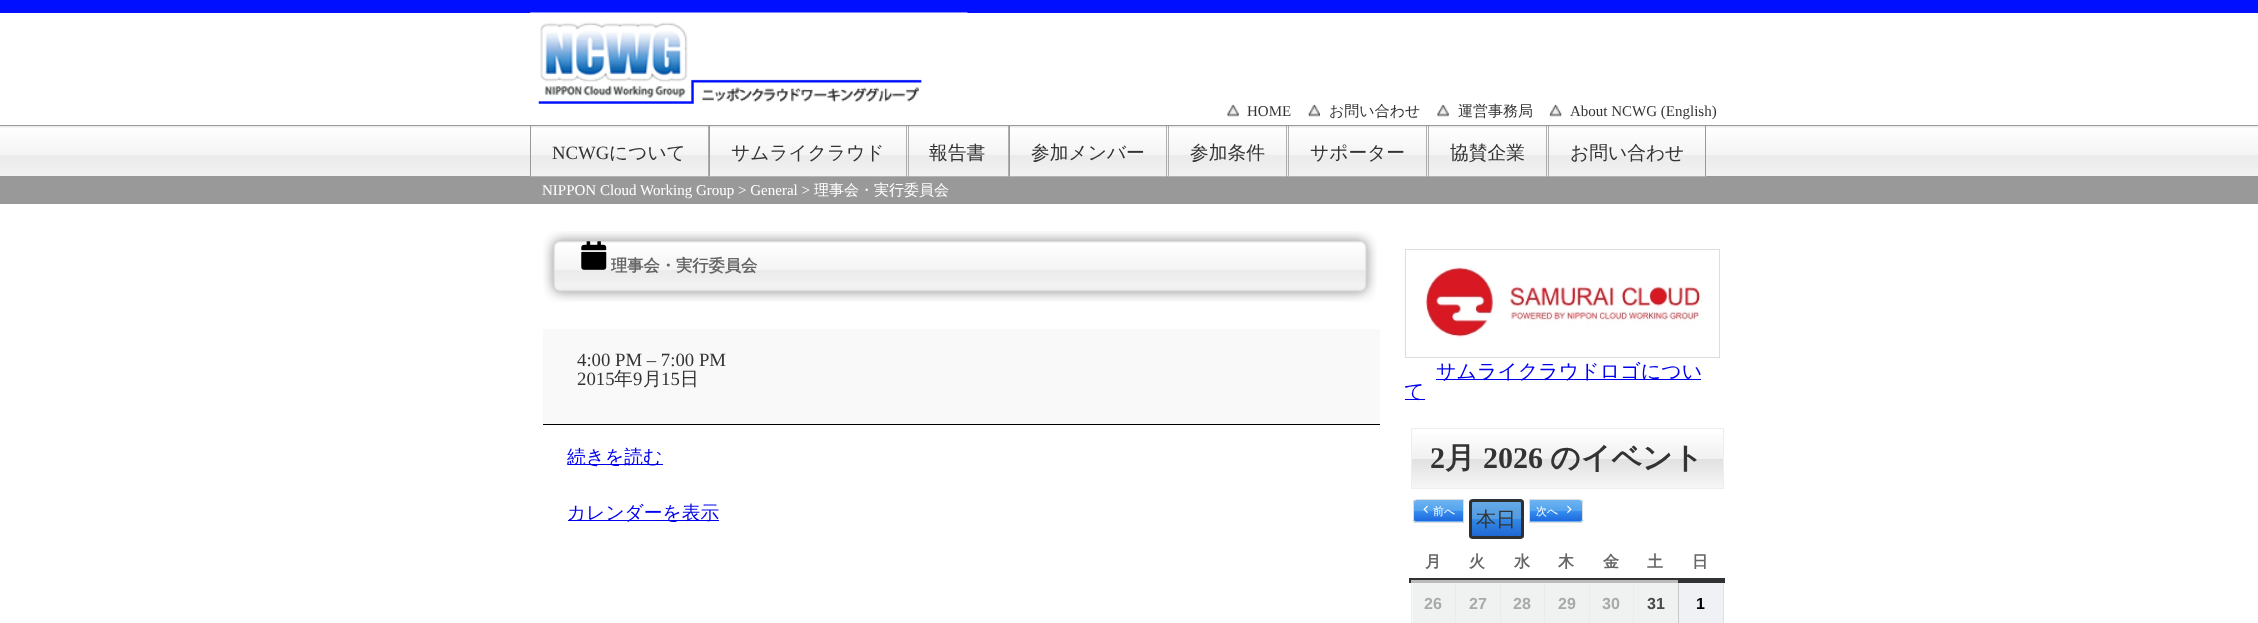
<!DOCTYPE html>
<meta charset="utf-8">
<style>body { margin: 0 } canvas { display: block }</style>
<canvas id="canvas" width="2258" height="623"></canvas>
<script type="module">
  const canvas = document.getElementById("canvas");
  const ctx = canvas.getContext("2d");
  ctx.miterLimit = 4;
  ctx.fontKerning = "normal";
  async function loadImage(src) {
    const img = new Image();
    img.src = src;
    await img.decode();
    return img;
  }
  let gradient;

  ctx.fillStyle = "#ffffff";
  ctx.fillRect(0, 0, 2258, 623);
  ctx.fillStyle = "#e0e0e0";
  ctx.fillRect(1723, 579, 1, 44);
  ctx.fillStyle = "#000fff";
  ctx.fillRect(0, 0, 2258, 13);
  ctx.drawImage(await loadImage("img1.png"), 530, 12, 438, 92);
  ctx.drawImage(await loadImage("img2.png"), 1226, 104, 13, 13);
  ctx.font = "15px Liberation Serif";
  ctx.fillStyle = "#333333";
  ctx.fillText("HOME", 1247, 116);
  ctx.drawImage(await loadImage("img3.png"), 1308, 104, 12, 13);
  ctx.font = "500 15px WenQuanYi Zen Hei";
  ctx.fillText("お問い合わせ", 1329, 116);
  ctx.drawImage(await loadImage("img2.png"), 1436, 104, 13, 13);
  ctx.fillText("運営事務局", 1458, 116);
  ctx.drawImage(await loadImage("img4.png"), 1549, 104, 13, 13);
  ctx.font = "15px Liberation Serif";
  ctx.fillText("About NCWG (English)", 1570, 116);
  ctx.drawImage(await loadImage("img5.png"), 0, 126, 2258, 50);
  ctx.fillStyle = "#999999";
  ctx.fillRect(0, 125, 2258, 1);
  ctx.fillRect(0, 176, 2258, 28);
  ctx.drawImage(await loadImage("img6.png"), 530, 126, 179, 51);
  ctx.fillRect(708, 126, 1, 50);
  ctx.fillRect(530, 126, 1, 50);
  ctx.drawImage(await loadImage("img7.png"), 531, 176, 177, 1);
  ctx.font = "18.75px Liberation Serif";
  ctx.fillStyle = "#333333";
  ctx.fillText("NCWG", 552, 159);
  ctx.font = "500 18.75px WenQuanYi Zen Hei";
  ctx.fillText("について", 609, 159);
  ctx.drawImage(await loadImage("img8.png"), 708, 126, 200, 51);
  ctx.fillStyle = "#999999";
  ctx.fillRect(906, 126, 1, 50);
  ctx.fillRect(709, 126, 1, 50);
  ctx.drawImage(await loadImage("img9.png"), 710, 126, 197, 51);
  ctx.fillStyle = "#333333";
  ctx.fillText("サムライクラウド", 731, 159);
  ctx.drawImage(await loadImage("img10.png"), 907, 126, 102, 51);
  ctx.fillStyle = "#999999";
  ctx.fillRect(1008, 126, 1, 50);
  ctx.fillRect(908, 126, 1, 50);
  ctx.drawImage(await loadImage("img11.png"), 908, 126, 100, 51);
  ctx.fillStyle = "#333333";
  ctx.fillText("報告書", 929, 159);
  ctx.drawImage(await loadImage("img12.png"), 1008, 126, 160, 51);
  ctx.fillStyle = "#999999";
  ctx.fillRect(1166, 126, 1, 50);
  ctx.fillRect(1009, 126, 1, 50);
  ctx.drawImage(await loadImage("img13.png"), 1010, 126, 157, 51);
  ctx.fillStyle = "#333333";
  ctx.fillText("参加メンバー", 1031, 159);
  ctx.drawImage(await loadImage("img14.png"), 1167, 126, 121, 51);
  ctx.fillStyle = "#999999";
  ctx.fillRect(1286, 126, 1, 50);
  ctx.fillRect(1168, 126, 1, 50);
  ctx.drawImage(await loadImage("img15.png"), 1168, 126, 119, 51);
  ctx.fillStyle = "#333333";
  ctx.fillText("参加条件", 1190, 159);
  ctx.drawImage(await loadImage("img16.png"), 1287, 126, 141, 51);
  ctx.fillStyle = "#999999";
  ctx.fillRect(1426, 126, 1, 50);
  ctx.fillRect(1288, 126, 1, 50);
  ctx.drawImage(await loadImage("img17.png"), 1288, 126, 139, 51);
  ctx.fillStyle = "#333333";
  ctx.fillText("サポーター", 1310, 159);
  ctx.drawImage(await loadImage("img14.png"), 1427, 126, 121, 51);
  ctx.fillStyle = "#999999";
  ctx.fillRect(1546, 126, 1, 50);
  ctx.fillRect(1428, 126, 1, 50);
  ctx.drawImage(await loadImage("img15.png"), 1428, 126, 119, 51);
  ctx.fillStyle = "#333333";
  ctx.fillText("協賛企業", 1450, 159);
  ctx.drawImage(await loadImage("img18.png"), 1547, 126, 160, 51);
  ctx.fillStyle = "#999999";
  ctx.fillRect(1705, 126, 1, 50);
  ctx.fillRect(1548, 126, 1, 50);
  ctx.drawImage(await loadImage("img19.png"), 1548, 126, 157, 51);
  ctx.fillStyle = "#333333";
  ctx.fillText("お問い合わせ", 1570, 159);
  ctx.font = "15px Liberation Serif";
  ctx.fillStyle = "#ffffff";
  ctx.fillText("NIPPON Cloud Working Group > General >", 542, 195);
  ctx.font = "500 15px WenQuanYi Zen Hei";
  ctx.fillText("理事会・実行委員会", 814, 195);
  ctx.drawImage(await loadImage("img20.png"), 543, 231, 834, 71);
  ctx.drawImage(await loadImage("img21.png"), 581, 241, 26, 29);
  ctx.font = "bold 16.25px WenQuanYi Zen Hei";
  ctx.fillStyle = "#666666";
  ctx.fillText("理事会・実行委員会", 611, 271);
  ctx.fillStyle = "#f9f9f9";
  ctx.fillRect(543, 329, 837, 95);
  ctx.fillStyle = "#000000";
  ctx.fillRect(543, 424, 837, 1);
  ctx.font = "18.75px Liberation Serif";
  ctx.fillStyle = "#333333";
  ctx.fillText("4:00 PM – 7:00 PM", 577, 366);
  ctx.fillText("2015", 577, 385);
  ctx.font = "500 18.75px WenQuanYi Zen Hei";
  ctx.fillText("年", 614, 385);
  ctx.font = "18.75px Liberation Serif";
  ctx.fillText("9", 633, 385);
  ctx.font = "500 18.75px WenQuanYi Zen Hei";
  ctx.fillText("月", 643, 385);
  ctx.font = "18.75px Liberation Serif";
  ctx.fillText("15", 661, 385);
  ctx.font = "500 18.75px WenQuanYi Zen Hei";
  ctx.fillText("日", 680, 385);
  ctx.fillStyle = "#0000ee";
  ctx.fillRect(568, 464, 95, 1);
  ctx.fillText("続きを読む", 567, 463);
  ctx.fillRect(568, 520, 151, 1);
  ctx.fillText("カレンダーを表示", 567, 519);
  ctx.strokeStyle = "#dddddd";
  ctx.strokeRect(1405.5, 249.5, 314, 108);
  ctx.drawImage(await loadImage("img22.png"), 1425, 267, 277, 72);
  ctx.fillRect(1436, 379, 265, 1);
  ctx.font = "500 20px WenQuanYi Zen Hei";
  ctx.fillText("サムライクラウドロゴについ", 1436, 378);
  ctx.fillRect(1405, 399, 20, 1);
  ctx.fillText("て", 1404, 398);
  gradient = ctx.createLinearGradient(1568, 429, 1568, 488);
  gradient.addColorStop(0, "#ffffff");
  gradient.addColorStop(0.5, "#f1f1f1");
  gradient.addColorStop(0.51, "#e1e1e1");
  gradient.addColorStop(1, "#f6f6f6");
  ctx.fillStyle = gradient;
  ctx.fillRect(1412, 434, 311, 54);
  ctx.strokeStyle = "#eeeeee";
  ctx.strokeRect(1411.5, 428.5, 312, 60);
  ctx.font = "bold 30px Liberation Serif";
  ctx.fillStyle = "#333333";
  ctx.fillText("2", 1430, 468);
  ctx.font = "bold 30px WenQuanYi Zen Hei";
  ctx.fillText("月", 1445, 468);
  ctx.font = "bold 30px Liberation Serif";
  ctx.fillText("2026", 1483, 468);
  ctx.font = "bold 30px WenQuanYi Zen Hei";
  ctx.fillText("のイベント", 1550, 468);
  ctx.save();
  ctx.beginPath();
  ctx.roundRect(1413, 499, 51, 24, [4, 0, 0, 4]);
  ctx.clip();
  gradient = ctx.createLinearGradient(1438, 500, 1438, 521);
  gradient.addColorStop(0, "#6db3f2");
  gradient.addColorStop(0.5, "#54a3ee");
  gradient.addColorStop(0.51, "#3690f0");
  gradient.addColorStop(1, "#1e69de");
  ctx.fillStyle = gradient;
  ctx.fillRect(1413, 500, 50, 21);
  gradient = ctx.createLinearGradient(1438, 521, 1438, 543);
  gradient.addColorStop(0, "#6db3f2");
  gradient.addColorStop(0.5, "#54a3ee");
  gradient.addColorStop(0.51, "#3690f0");
  gradient.addColorStop(1, "#1e69de");
  ctx.fillStyle = gradient;
  ctx.fillRect(1413, 521, 51, 2);
  ctx.restore();
  ctx.beginPath();
  ctx.roundRect(1413.5, 499.5, 50, 23, [3.5, 0, 0, 3.5]);
  ctx.strokeStyle = "#dddddd";
  ctx.stroke();
  ctx.drawImage(await loadImage("img23.png"), 1423, 505, 5, 9);
  ctx.font = "500 11px WenQuanYi Zen Hei";
  ctx.fillStyle = "#ffffff";
  ctx.fillText("前へ", 1433, 515);
  ctx.save();
  ctx.beginPath();
  ctx.roundRect(1469, 499, 55, 40, 4);
  ctx.clip();
  gradient = ctx.createLinearGradient(1496, 500, 1496, 538);
  gradient.addColorStop(0, "#68aae6");
  gradient.addColorStop(0.5, "#509be2");
  gradient.addColorStop(0.51, "#3389e4");
  gradient.addColorStop(1, "#1d64d3");
  ctx.fillStyle = gradient;
  ctx.fillRect(1469, 500, 55, 38);
  ctx.restore();
  ctx.beginPath();
  ctx.roundRect(1470.5, 500.5, 52, 37, 2.5);
  ctx.strokeStyle = "#2f3030";
  ctx.lineWidth = 3;
  ctx.stroke();
  ctx.font = "500 20px WenQuanYi Zen Hei";
  ctx.fillStyle = "#333333";
  ctx.fillText("本日", 1476, 526);
  ctx.save();
  ctx.beginPath();
  ctx.roundRect(1529, 499, 54, 24, [0, 4, 4, 0]);
  ctx.clip();
  gradient = ctx.createLinearGradient(1556, 500, 1556, 521);
  gradient.addColorStop(0, "#6db3f2");
  gradient.addColorStop(0.5, "#54a3ee");
  gradient.addColorStop(0.51, "#3690f0");
  gradient.addColorStop(1, "#1e69de");
  ctx.fillStyle = gradient;
  ctx.fillRect(1530, 500, 53, 21);
  gradient = ctx.createLinearGradient(1556, 521, 1556, 543);
  gradient.addColorStop(0, "#6db3f2");
  gradient.addColorStop(0.5, "#54a3ee");
  gradient.addColorStop(0.51, "#3690f0");
  gradient.addColorStop(1, "#1e69de");
  ctx.fillStyle = gradient;
  ctx.fillRect(1529, 521, 54, 2);
  ctx.restore();
  ctx.beginPath();
  ctx.roundRect(1529.5, 499.5, 53, 23, [0, 3.5, 3.5, 0]);
  ctx.strokeStyle = "#dddddd";
  ctx.lineWidth = 1;
  ctx.stroke();
  ctx.font = "500 11px WenQuanYi Zen Hei";
  ctx.fillStyle = "#ffffff";
  ctx.fillText("次へ", 1536, 515);
  ctx.drawImage(await loadImage("img24.png"), 1567, 505, 5, 9);
  ctx.fillStyle = "#f0f0f0";
  ctx.fillRect(1411, 580, 1, 43);
  ctx.fillStyle = "#ebebeb";
  ctx.fillRect(1455, 580, 1, 43);
  ctx.fillRect(1500, 580, 1, 43);
  ctx.fillRect(1544, 580, 1, 43);
  ctx.fillRect(1589, 580, 1, 43);
  ctx.fillRect(1633, 580, 1, 43);
  ctx.fillStyle = "#c7c8c8";
  ctx.fillRect(1678, 580, 1, 43);
  ctx.fillStyle = "#313233";
  ctx.fillRect(1409, 578, 316, 5);
  ctx.fillStyle = "#bbbbbc";
  ctx.fillRect(1411, 580, 267, 3);
  ctx.letterSpacing = "1px";
  ctx.font = "bold 16px WenQuanYi Zen Hei";
  ctx.fillStyle = "#666666";
  ctx.fillText("月", 1425, 567);
  ctx.fillText("火", 1469, 567);
  ctx.fillText("水", 1514, 567);
  ctx.fillText("木", 1558, 567);
  ctx.fillText("金", 1603, 567);
  ctx.fillText("土", 1647, 567);
  ctx.fillText("日", 1692, 567);
  ctx.fillStyle = "#f6f6f6";
  ctx.fillRect(1412, 583, 1, 40);
  ctx.fillStyle = "#f0f1f1";
  ctx.fillRect(1413, 583, 42, 40);
  ctx.letterSpacing = "0px";
  ctx.font = "bold 16px Liberation Sans";
  ctx.fillStyle = "#a9a9a9";
  ctx.fillText("26", 1424, 609);
  ctx.fillStyle = "#f0f1f1";
  ctx.fillRect(1456, 583, 44, 40);
  ctx.fillStyle = "#a9a9a9";
  ctx.fillText("27", 1469, 609);
  ctx.fillStyle = "#f0f1f1";
  ctx.fillRect(1501, 583, 43, 40);
  ctx.fillStyle = "#a9a9a9";
  ctx.fillText("28", 1513, 609);
  ctx.fillStyle = "#f0f1f1";
  ctx.fillRect(1545, 583, 44, 40);
  ctx.fillStyle = "#a9a9a9";
  ctx.fillText("29", 1558, 609);
  ctx.fillStyle = "#f0f1f1";
  ctx.fillRect(1590, 583, 43, 40);
  ctx.fillStyle = "#a9a9a9";
  ctx.fillText("30", 1602, 609);
  ctx.fillStyle = "#f0f1f1";
  ctx.fillRect(1634, 583, 44, 40);
  ctx.fillStyle = "#4a4a4a";
  ctx.fillText("31", 1647, 609);
  ctx.fillStyle = "#f0f1f5";
  ctx.fillRect(1679, 583, 44, 40);
  ctx.fillStyle = "#000000";
  ctx.fillText("1", 1696, 609);
</script>
